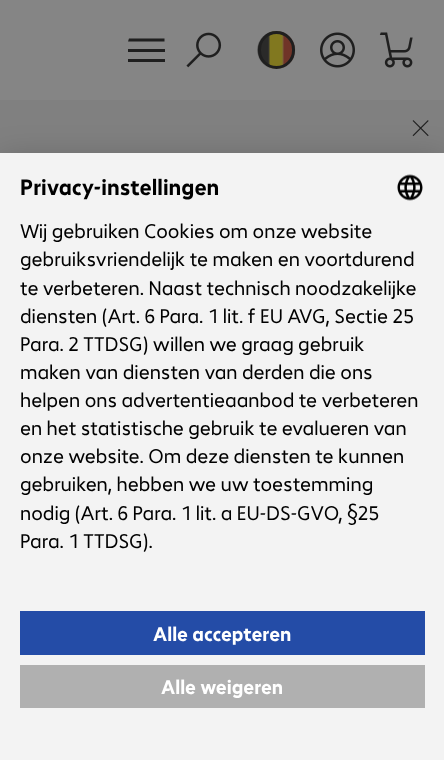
<!DOCTYPE html>
<meta charset="utf-8">
<style>body { margin: 0 } canvas { display: block }</style>
<canvas id="canvas" width="444" height="760"></canvas>
<script type="module">
  const canvas = document.getElementById("canvas");
  const ctx = canvas.getContext("2d");
  ctx.miterLimit = 4;
  ctx.fontKerning = "normal";
  async function loadImage(src) {
    const img = new Image();
    img.src = src;
    await img.decode();
    return img;
  }

  ctx.fillStyle = "#858585";
  ctx.fillRect(0, 0, 444, 760);
  ctx.fillStyle = "#1f1f1f";
  ctx.fillRect(128, 59, 37, 3);
  ctx.fillRect(128, 49, 37, 3);
  ctx.beginPath();
  ctx.moveTo(129, 38.5);
  ctx.lineTo(164.5, 38.5);
  ctx.lineTo(164.5, 41.5);
  ctx.lineTo(128, 41.5);
  ctx.closePath();
  ctx.fill();
  ctx.drawImage(await loadImage("img1.png"), 186, 32, 36, 36);
  ctx.drawImage(await loadImage("img2.png"), 257, 31, 39, 38);
  ctx.beginPath();
  ctx.roundRect(259.5, 32.5, 34, 35, 17);
  ctx.strokeStyle = "#1f1f1f";
  ctx.lineWidth = 3;
  ctx.stroke();
  ctx.drawImage(await loadImage("img3.png"), 320, 32, 35, 36);
  ctx.drawImage(await loadImage("img4.png"), 379, 32, 34, 36);
  ctx.fillStyle = "#808080";
  ctx.fillRect(0, 100, 444, 53);
  ctx.drawImage(await loadImage("img5.png"), 412, 120, 17, 17);
  ctx.fillStyle = "rgba(0, 0, 0, 0.22)";
  ctx.filter = "blur(16px)";
  ctx.beginPath();
  ctx.rect(0, 159, 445, 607);
  ctx.fill();
  ctx.filter = "none";
  ctx.fillStyle = "#f3f3f3";
  ctx.fillRect(0, 153, 444, 607);
  ctx.font = "bold 22.5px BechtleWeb";
  ctx.fillStyle = "#000000";
  ctx.fillText("Privacy-instellingen", 20, 195);
  ctx.drawImage(await loadImage("img6.png"), 397, 174, 26, 27);
  ctx.font = "20px BechtleWeb";
  ctx.fillText("Wij gebruiken Cookies om onze website", 20, 238);
  ctx.fillText("gebruiksvriendelijk te maken en voortdurend", 20, 266);
  ctx.fillText("te verbeteren. Naast technisch noodzakelijke", 20, 295);
  ctx.fillText("diensten (Art. 6 Para. 1 lit. f EU AVG, Sectie 25", 20, 323);
  ctx.fillText("Para. 2 TTDSG) willen we graag gebruik", 20, 351);
  ctx.fillText("maken van diensten van derden die ons", 20, 379);
  ctx.fillText("helpen ons advertentieaanbod te verbeteren", 20, 407);
  ctx.fillText("en het statistische gebruik te evalueren van", 20, 435);
  ctx.fillText("onze website. Om deze diensten te kunnen", 20, 463);
  ctx.fillText("gebruiken, hebben we uw toestemming", 20, 491);
  ctx.fillText("nodig (Art. 6 Para. 1 lit. a EU-DS-GVO, §25", 20, 520);
  ctx.fillText("Para. 1 TTDSG).", 20, 548);
  ctx.fillStyle = "#244ca7";
  ctx.fillRect(20, 611, 405, 44);
  ctx.font = "bold 20px BechtleWeb";
  ctx.fillStyle = "#ffffff";
  ctx.fillText("Alle accepteren", 153, 641);
  ctx.fillStyle = "#b0b0b0";
  ctx.fillRect(20, 665, 405, 43);
  ctx.fillStyle = "#ffffff";
  ctx.fillText("Alle weigeren", 161, 694);
</script>
